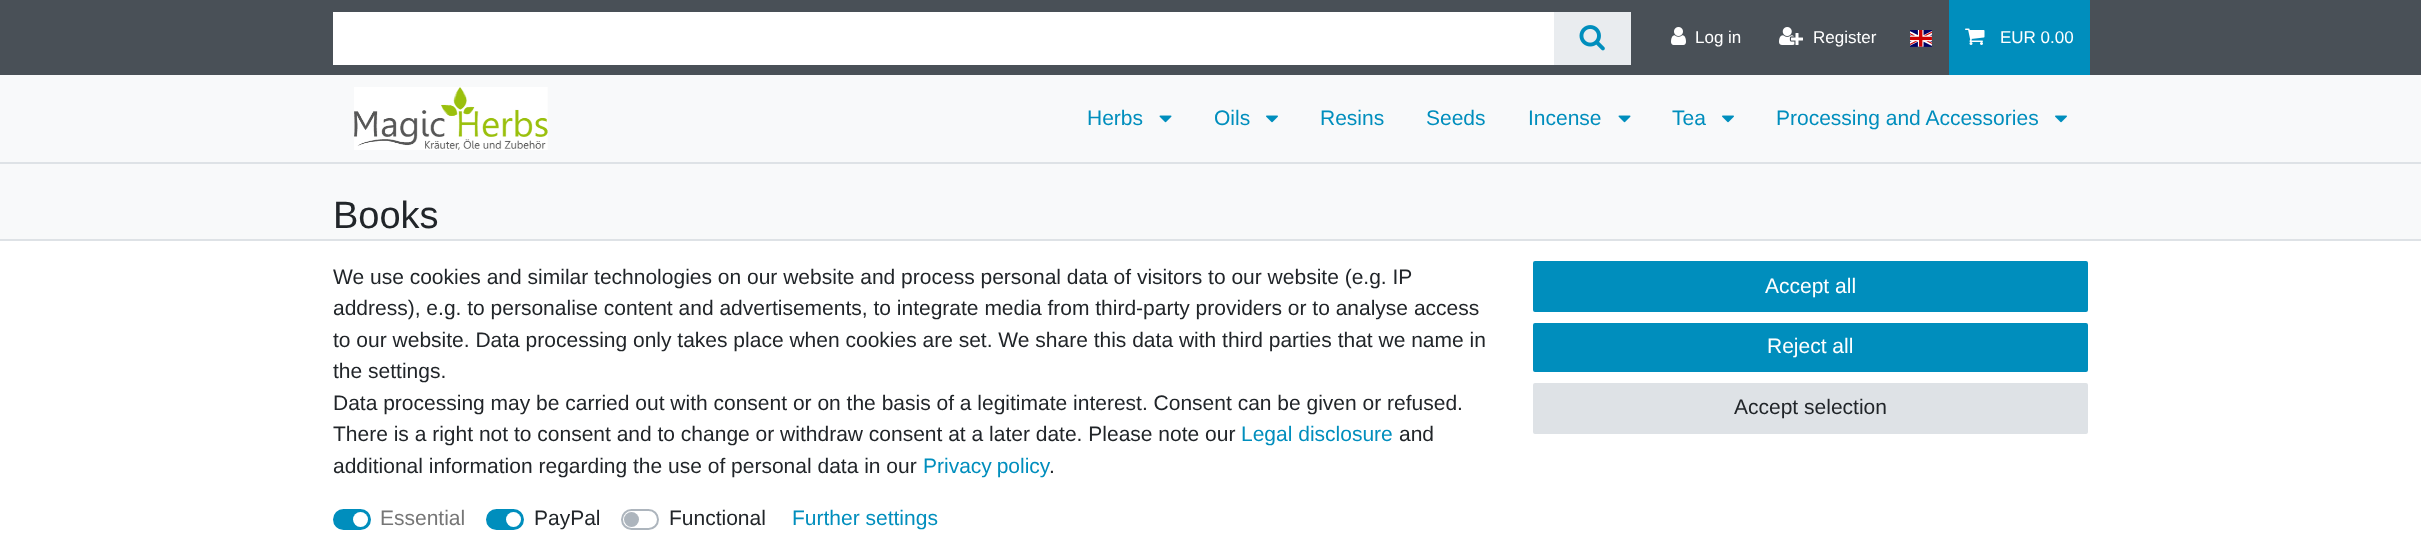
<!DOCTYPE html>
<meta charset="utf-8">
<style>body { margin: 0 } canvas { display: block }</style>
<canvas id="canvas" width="2421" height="554"></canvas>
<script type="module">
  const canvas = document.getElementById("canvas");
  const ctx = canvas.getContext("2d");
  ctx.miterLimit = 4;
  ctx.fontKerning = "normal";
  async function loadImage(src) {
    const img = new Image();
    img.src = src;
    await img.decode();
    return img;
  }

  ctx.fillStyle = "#f8f9fa";
  ctx.fillRect(0, 0, 2421, 554);
  ctx.fillStyle = "#495057";
  ctx.fillRect(0, 0, 2421, 75);
  ctx.fillStyle = "#ffffff";
  ctx.fillRect(333, 12, 1221, 53);
  ctx.fillStyle = "#e9ecef";
  ctx.fillRect(1554, 12, 77, 53);
  ctx.drawImage(await loadImage("img1.png"), 1579, 25, 26, 26);
  ctx.drawImage(await loadImage("img2.png"), 1671, 27, 15, 18);
  ctx.font = "17px Liberation Sans";
  ctx.fillStyle = "#ffffff";
  ctx.fillText("Log in", 1695, 43);
  ctx.drawImage(await loadImage("img3.png"), 1779, 27, 24, 18);
  ctx.fillText("Register", 1813, 43);
  ctx.drawImage(await loadImage("img4.png"), 1910, 30, 22, 17);
  ctx.fillStyle = "#008ebd";
  ctx.fillRect(1949, 0, 141, 75);
  ctx.drawImage(await loadImage("img5.png"), 1965, 28, 20, 17);
  ctx.fillStyle = "#ffffff";
  ctx.fillText("EUR 0.00", 2000, 43);
  ctx.fillStyle = "#dee2e6";
  ctx.fillRect(0, 162, 2421, 2);
  ctx.drawImage(await loadImage("img6.png"), 354, 87, 194, 63);
  ctx.font = "21px Liberation Sans";
  ctx.fillStyle = "#008ebd";
  ctx.fillText("Herbs", 1087, 125);
  ctx.drawImage(await loadImage("img7.png"), 1159, 115, 13, 8);
  ctx.fillText("Oils", 1214, 125);
  ctx.drawImage(await loadImage("img8.png"), 1266, 115, 12, 8);
  ctx.fillText("Resins", 1320, 125);
  ctx.fillText("Seeds", 1426, 125);
  ctx.fillText("Incense", 1528, 125);
  ctx.drawImage(await loadImage("img7.png"), 1618, 115, 13, 8);
  ctx.fillText("Tea", 1672, 125);
  ctx.drawImage(await loadImage("img8.png"), 1722, 115, 12, 8);
  ctx.fillText("Processing and Accessories", 1776, 125);
  ctx.drawImage(await loadImage("img8.png"), 2055, 115, 12, 8);
  ctx.font = "38px Liberation Sans";
  ctx.fillStyle = "#212529";
  ctx.fillText("Books", 333, 228);
  ctx.fillStyle = "#ffffff";
  ctx.fillRect(0, 241, 2421, 313);
  ctx.fillStyle = "#dee2e6";
  ctx.fillRect(0, 239, 2421, 2);
  ctx.font = "21px Liberation Sans";
  ctx.fillStyle = "#212529";
  ctx.fillText("We use cookies and similar technologies on our website and process personal data of visitors to our website (e.g. IP", 333, 284);
  ctx.fillText("address), e.g. to personalise content and advertisements, to integrate media from third-party providers or to analyse access", 333, 315);
  ctx.fillText("to our website. Data processing only takes place when cookies are set. We share this data with third parties that we name in", 333, 347);
  ctx.fillText("the settings.", 333, 378);
  ctx.fillText("Data processing may be carried out with consent or on the basis of a legitimate interest. Consent can be given or refused.", 333, 410);
  ctx.fillText("There is a right not to consent and to change or withdraw consent at a later date. Please note our", 333, 441);
  ctx.fillStyle = "#008ebd";
  ctx.fillText("Legal disclosure", 1241, 441);
  ctx.fillStyle = "#212529";
  ctx.fillText("and", 1399, 441);
  ctx.fillText("additional information regarding the use of personal data in our", 333, 473);
  ctx.wordSpacing = "-1px";
  ctx.fillStyle = "#008ebd";
  ctx.fillText("Privacy policy", 923, 473);
  ctx.wordSpacing = "0px";
  ctx.fillStyle = "#212529";
  ctx.fillText(".", 1049, 473);
  ctx.fillStyle = "#008ebd";
  ctx.beginPath();
  ctx.roundRect(334, 510, 36, 19, 9.5);
  ctx.fill();
  ctx.strokeStyle = "#008ebd";
  ctx.lineWidth = 2;
  ctx.stroke();
  ctx.fillStyle = "#767676";
  ctx.fillText("Essential", 380, 525);
  ctx.fillStyle = "#ffffff";
  ctx.beginPath();
  ctx.arc(360.5, 519.5, 7.5, 0, Math.PI * 2);
  ctx.fill();
  ctx.fillStyle = "#008ebd";
  ctx.beginPath();
  ctx.roundRect(487, 510, 36, 19, 9.5);
  ctx.fill();
  ctx.stroke();
  ctx.fillStyle = "#212529";
  ctx.fillText("PayPal", 534, 525);
  ctx.fillStyle = "#ffffff";
  ctx.beginPath();
  ctx.arc(513.5, 519.5, 7.5, 0, Math.PI * 2);
  ctx.fill();
  ctx.beginPath();
  ctx.roundRect(622, 510, 36, 19, 9.5);
  ctx.strokeStyle = "#adb5bd";
  ctx.stroke();
  ctx.fillStyle = "#212529";
  ctx.fillText("Functional", 669, 525);
  ctx.fillStyle = "#adb5bd";
  ctx.beginPath();
  ctx.arc(631.5, 519.5, 7.5, 0, Math.PI * 2);
  ctx.fill();
  ctx.fillStyle = "#008ebd";
  ctx.fillText("Further settings", 792, 525);
  ctx.beginPath();
  ctx.roundRect(1534, 262, 553, 49, 1);
  ctx.fill();
  ctx.strokeStyle = "#008ebd";
  ctx.stroke();
  ctx.fillStyle = "#ffffff";
  ctx.fillText("Accept all", 1765, 293);
  ctx.fillStyle = "#008ebd";
  ctx.beginPath();
  ctx.roundRect(1534, 324, 553, 47, 1);
  ctx.fill();
  ctx.stroke();
  ctx.fillStyle = "#ffffff";
  ctx.fillText("Reject all", 1767, 353);
  ctx.fillStyle = "#dee2e6";
  ctx.beginPath();
  ctx.roundRect(1534, 384, 553, 49, 1);
  ctx.fill();
  ctx.strokeStyle = "#dee2e6";
  ctx.stroke();
  ctx.fillStyle = "#212529";
  ctx.fillText("Accept selection", 1734, 414);
</script>
